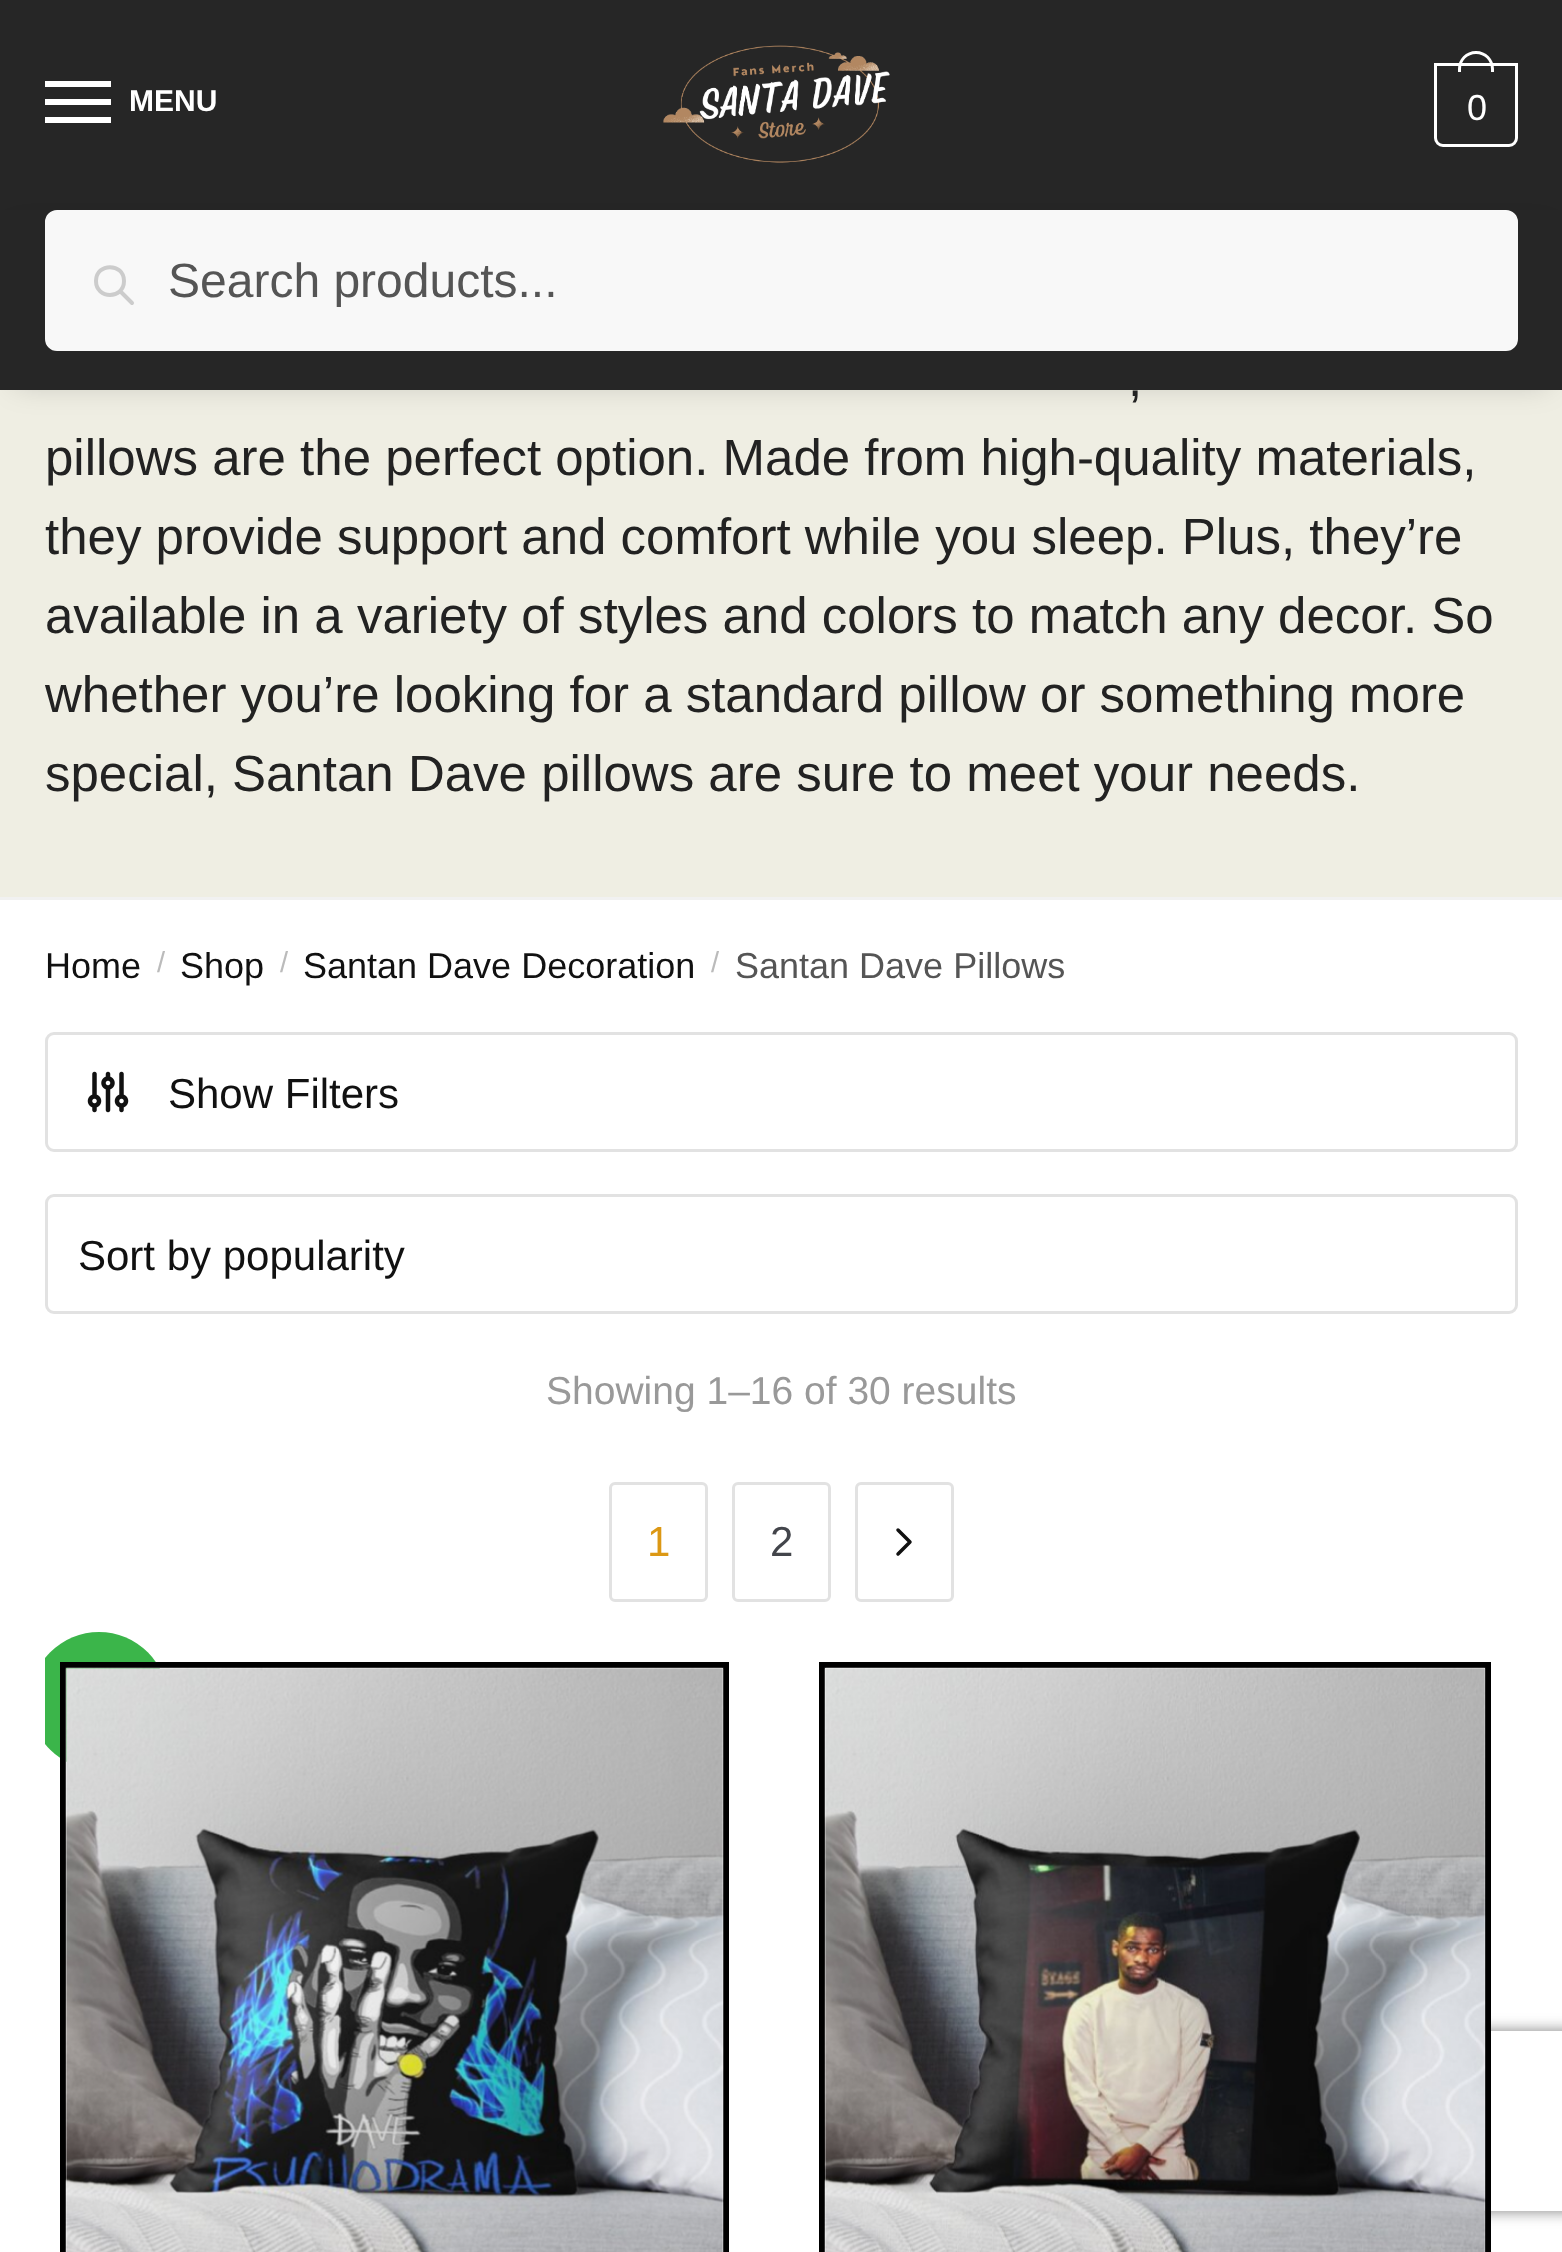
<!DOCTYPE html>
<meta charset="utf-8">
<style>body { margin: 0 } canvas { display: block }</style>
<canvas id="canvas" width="1562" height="2252"></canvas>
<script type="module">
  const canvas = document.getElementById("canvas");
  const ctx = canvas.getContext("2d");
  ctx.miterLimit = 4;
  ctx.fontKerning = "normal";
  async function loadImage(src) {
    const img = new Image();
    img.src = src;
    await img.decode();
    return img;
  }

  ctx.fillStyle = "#ffffff";
  ctx.fillRect(0, 0, 1562, 2252);
  ctx.fillStyle = "#262626";
  ctx.fillRect(0, 0, 1562, 210);
  ctx.fillStyle = "#ffffff";
  ctx.fillRect(45, 81, 66, 6);
  ctx.fillRect(45, 99, 66, 6);
  ctx.font = "bold 30px Liberation Sans";
  ctx.fillText("MENU", 129, 111);
  ctx.fillRect(45, 117, 66, 6);
  ctx.drawImage(await loadImage("img1.png"), 663, 45, 227, 118);
  ctx.beginPath();
  ctx.roundRect(1435.5, 64.5, 81, 81, [0, 0, 7.5, 7.5]);
  ctx.strokeStyle = "#ffffff";
  ctx.lineWidth = 3;
  ctx.stroke();
  ctx.beginPath();
  ctx.moveTo(1476, 51);
  ctx.bezierCurveTo(1486, 51, 1494, 59, 1494, 69);
  ctx.lineTo(1494, 72);
  ctx.lineTo(1458, 72);
  ctx.lineTo(1458, 69);
  ctx.bezierCurveTo(1458, 59, 1466, 51, 1476, 51);
  ctx.closePath();
  ctx.moveTo(1476, 54);
  ctx.bezierCurveTo(1484.5, 54, 1491, 60.5, 1491, 69);
  ctx.lineTo(1491, 72);
  ctx.lineTo(1461, 72);
  ctx.lineTo(1461, 69);
  ctx.bezierCurveTo(1461, 60.5, 1467.5, 54, 1476, 54);
  ctx.closePath();
  ctx.fill("evenodd");
  ctx.letterSpacing = "-2px";
  ctx.font = "36px Liberation Sans";
  ctx.fillText("0", 1467, 120);
  ctx.fillStyle = "#efeee3";
  ctx.fillRect(0, 390, 1562, 507);
  ctx.fillStyle = "rgba(0, 0, 0, 0.18)";
  ctx.filter = "blur(15px)";
  ctx.beginPath();
  ctx.rect(15, 234, 1533, 150);
  ctx.fill();
  ctx.filter = "none";
  ctx.fillStyle = "#262626";
  ctx.fillRect(0, 210, 1562, 180);
  ctx.fillStyle = "#f8f8f8";
  ctx.beginPath();
  ctx.roundRect(46.5, 211.5, 1470, 138, 10.5);
  ctx.fill();
  ctx.strokeStyle = "#f8f8f8";
  ctx.stroke();
  ctx.beginPath();
  ctx.moveTo(132, 303);
  ctx.lineTo(120, 291);
  ctx.moveTo(124, 281);
  ctx.bezierCurveTo(124, 299.5, 96, 299.5, 96, 281);
  ctx.bezierCurveTo(96, 262.5, 124, 262.5, 124, 281);
  ctx.closePath();
  ctx.strokeStyle = "#cccccc";
  ctx.lineWidth = 4;
  ctx.lineCap = "round";
  ctx.lineJoin = "round";
  ctx.stroke();
  ctx.letterSpacing = "0px";
  ctx.font = "48px Liberation Sans";
  ctx.fillStyle = "#555555";
  ctx.fillText("Search products...", 168, 297);
  ctx.fillStyle = "#f1f1f1";
  ctx.fillRect(0, 897, 1562, 3);
  ctx.font = "51px Liberation Sans";
  ctx.fillStyle = "#222222";
  ctx.fillText(",", 1128, 396);
  ctx.fillText("pillows are the perfect option. Made from high-quality materials,", 45, 475);
  ctx.fillText("they provide support and comfort while you sleep. Plus, they’re", 45, 554);
  ctx.fillText("available in a variety of styles and colors to match any decor. So", 45, 633);
  ctx.fillText("whether you’re looking for a standard pillow or something more", 45, 712);
  ctx.fillText("special, Santan Dave pillows are sure to meet your needs.", 45, 791);
  ctx.font = "36px Liberation Sans";
  ctx.fillStyle = "#111111";
  ctx.fillText("Home", 45, 978);
  ctx.font = "29px Liberation Sans";
  ctx.fillStyle = "#bbbbbb";
  ctx.fillText("/", 157, 972);
  ctx.font = "36px Liberation Sans";
  ctx.fillStyle = "#111111";
  ctx.fillText("Shop", 180, 978);
  ctx.font = "29px Liberation Sans";
  ctx.fillStyle = "#bbbbbb";
  ctx.fillText("/", 280, 972);
  ctx.font = "36px Liberation Sans";
  ctx.fillStyle = "#111111";
  ctx.fillText("Santan Dave Decoration", 303, 978);
  ctx.font = "29px Liberation Sans";
  ctx.fillStyle = "#bbbbbb";
  ctx.fillText("/", 711, 972);
  ctx.font = "36px Liberation Sans";
  ctx.fillStyle = "#555555";
  ctx.fillText("Santan Dave Pillows", 735, 978);
  ctx.beginPath();
  ctx.roundRect(46.5, 1033.5, 1470, 117, 7.5);
  ctx.strokeStyle = "#e2e2e2";
  ctx.lineWidth = 3;
  ctx.lineJoin = "miter";
  ctx.stroke();
  ctx.drawImage(await loadImage("img2.png"), 87, 1071, 42, 42);
  ctx.font = "42px Liberation Sans";
  ctx.fillStyle = "#111111";
  ctx.fillText("Show Filters", 168, 1108);
  ctx.beginPath();
  ctx.roundRect(46.5, 1195.5, 1470, 117, 7.5);
  ctx.stroke();
  ctx.fillText("Sort by popularity", 78, 1270);
  ctx.font = "39px Liberation Sans";
  ctx.fillStyle = "#999999";
  ctx.fillText("Showing 1–16 of 30 results", 546, 1404);
  ctx.beginPath();
  ctx.roundRect(610.5, 1483.5, 96, 117, 4.5);
  ctx.stroke();
  ctx.font = "42px Liberation Sans";
  ctx.fillStyle = "#dc9814";
  ctx.fillText("1", 647, 1556);
  ctx.beginPath();
  ctx.roundRect(733.5, 1483.5, 96, 117, 4.5);
  ctx.stroke();
  ctx.fillStyle = "#43454b";
  ctx.fillText("2", 770, 1556);
  ctx.beginPath();
  ctx.roundRect(856.5, 1483.5, 96, 117, 4.5);
  ctx.stroke();
  ctx.beginPath();
  ctx.moveTo(898, 1530);
  ctx.lineTo(910, 1542);
  ctx.lineTo(898, 1554);
  ctx.strokeStyle = "#111111";
  ctx.lineWidth = 3.5;
  ctx.lineJoin = "round";
  ctx.stroke();
  ctx.save();
  ctx.beginPath();
  ctx.rect(45, 1032, 1473, 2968);
  ctx.clip();
  ctx.fillStyle = "#3bb54a";
  ctx.beginPath();
  ctx.arc(99, 1701, 69, 0, Math.PI * 2);
  ctx.fill();
  ctx.restore();
  ctx.strokeStyle = "#000000";
  ctx.lineWidth = 6;
  ctx.lineJoin = "miter";
  ctx.strokeRect(63, 1665, 663, 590);
  ctx.drawImage(await loadImage("img3.png"), 65, 1667, 659, 585);
  ctx.save();
  ctx.beginPath();
  ctx.moveTo(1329, 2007);
  ctx.lineTo(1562, 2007);
  ctx.lineTo(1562, 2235);
  ctx.lineTo(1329, 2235);
  ctx.closePath();
  ctx.moveTo(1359, 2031);
  ctx.lineTo(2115, 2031);
  ctx.bezierCurveTo(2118.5, 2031, 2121, 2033.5, 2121, 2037);
  ctx.lineTo(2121, 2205);
  ctx.bezierCurveTo(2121, 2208.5, 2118.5, 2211, 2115, 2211);
  ctx.lineTo(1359, 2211);
  ctx.bezierCurveTo(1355.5, 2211, 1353, 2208.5, 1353, 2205);
  ctx.lineTo(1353, 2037);
  ctx.bezierCurveTo(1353, 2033.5, 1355.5, 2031, 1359, 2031);
  ctx.closePath();
  ctx.clip("evenodd");
  ctx.fillStyle = "#808080";
  ctx.filter = "blur(7.5px)";
  ctx.beginPath();
  ctx.roundRect(1353, 2031, 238, 180, 6);
  ctx.fill();
  ctx.filter = "none";
  ctx.restore();
  ctx.strokeRect(822, 1665, 666, 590);
  ctx.drawImage(await loadImage("img4.png"), 824, 1667, 662, 585);
</script>
